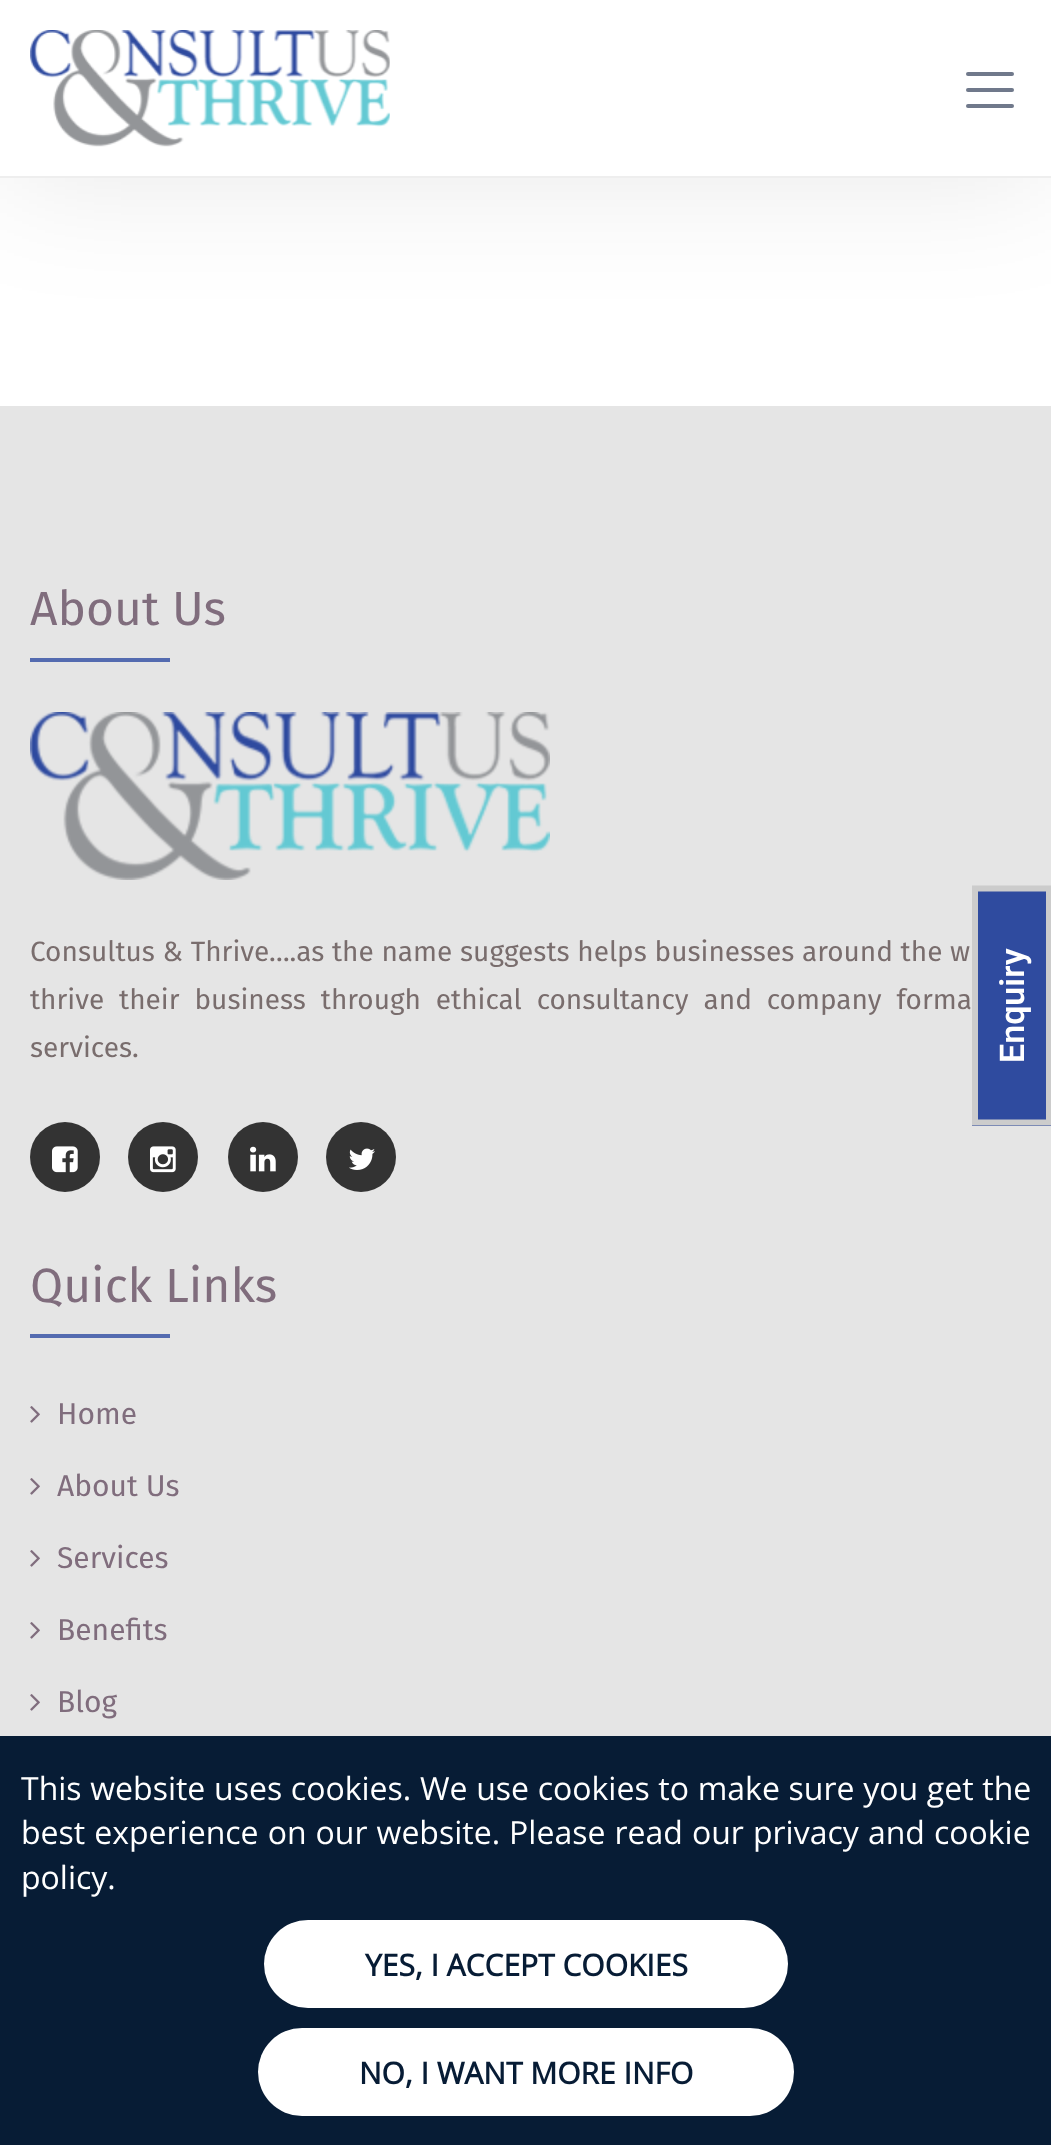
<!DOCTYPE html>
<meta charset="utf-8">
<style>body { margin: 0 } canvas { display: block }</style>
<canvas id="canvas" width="1051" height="2145"></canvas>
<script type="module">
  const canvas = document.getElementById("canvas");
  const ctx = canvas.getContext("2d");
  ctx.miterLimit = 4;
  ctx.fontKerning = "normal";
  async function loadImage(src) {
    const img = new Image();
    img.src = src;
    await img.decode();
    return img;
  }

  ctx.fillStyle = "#ffffff";
  ctx.fillRect(0, 0, 1051, 2145);
  ctx.fillStyle = "#e5e5e5";
  ctx.fillRect(0, 406, 1051, 1330);
  ctx.font = "48px Fira Sans";
  ctx.fillStyle = "#806d7d";
  ctx.fillText("About Us", 30, 625);
  ctx.fillStyle = "#546bb0";
  ctx.fillRect(30, 658, 140, 4);
  ctx.drawImage(await loadImage("img1.png"), 30, 712, 520, 168);
  ctx.wordSpacing = "0.25px";
  ctx.font = "28px Fira Sans";
  ctx.fillStyle = "#796d6d";
  ctx.fillText("Consultus & Thrive….as the name suggests helps businesses around the w", 30, 961);
  ctx.wordSpacing = "7.5px";
  ctx.fillText("thrive their business through ethical consultancy and company forma", 30, 1009);
  ctx.wordSpacing = "0px";
  ctx.fillText("services.", 30, 1057);
  ctx.fillStyle = "#333333";
  ctx.beginPath();
  ctx.arc(65, 1157, 35, 0, Math.PI * 2);
  ctx.fill();
  ctx.drawImage(await loadImage("img2.png"), 52, 1146, 26, 27);
  ctx.beginPath();
  ctx.arc(163, 1157, 35, 0, Math.PI * 2);
  ctx.fill();
  ctx.drawImage(await loadImage("img3.png"), 150, 1146, 26, 27);
  ctx.beginPath();
  ctx.arc(263, 1157, 35, 0, Math.PI * 2);
  ctx.fill();
  ctx.drawImage(await loadImage("img4.png"), 250, 1146, 26, 26);
  ctx.beginPath();
  ctx.arc(361, 1157, 35, 0, Math.PI * 2);
  ctx.fill();
  ctx.drawImage(await loadImage("img5.png"), 349, 1148, 26, 22);
  ctx.font = "48px Fira Sans";
  ctx.fillStyle = "#806d7d";
  ctx.fillText("Quick Links", 30, 1302);
  ctx.fillStyle = "#546bb0";
  ctx.fillRect(30, 1334, 140, 4);
  ctx.drawImage(await loadImage("img6.png"), 30, 1406, 10, 17);
  ctx.font = "30px Fira Sans";
  ctx.fillStyle = "#806d7d";
  ctx.fillText("Home", 57, 1424);
  ctx.drawImage(await loadImage("img6.png"), 30, 1478, 10, 17);
  ctx.fillText("About Us", 57, 1496);
  ctx.drawImage(await loadImage("img6.png"), 30, 1550, 10, 17);
  ctx.fillText("Services", 57, 1568);
  ctx.drawImage(await loadImage("img6.png"), 30, 1622, 10, 17);
  ctx.fillText("Benefits", 57, 1640);
  ctx.drawImage(await loadImage("img6.png"), 30, 1694, 10, 17);
  ctx.fillText("Blog", 57, 1712);
  ctx.fillStyle = "rgba(0, 0, 0, 0.09)";
  ctx.filter = "blur(65px)";
  ctx.beginPath();
  ctx.rect(0, 0, 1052, 178);
  ctx.fill();
  ctx.filter = "none";
  ctx.fillStyle = "#ffffff";
  ctx.fillRect(0, 0, 1051, 176);
  ctx.fillStyle = "#eeeeee";
  ctx.fillRect(0, 176, 1051, 2);
  ctx.drawImage(await loadImage("img7.png"), 30, 30, 360, 117);
  ctx.fillStyle = "#70798b";
  ctx.beginPath();
  ctx.roundRect(966, 104, 48, 4, 2);
  ctx.fill();
  ctx.beginPath();
  ctx.roundRect(966, 88, 48, 4, 2);
  ctx.fill();
  ctx.beginPath();
  ctx.roundRect(966, 72, 48, 4, 2);
  ctx.fill();
  ctx.fillStyle = "#2f4b9f";
  ctx.fillRect(972, 891, 79, 235);
  ctx.beginPath();
  ctx.moveTo(975, 1122.5);
  ctx.lineTo(975, 888.5);
  ctx.lineTo(1049, 888.5);
  ctx.lineTo(1049, 1122.5);
  ctx.closePath();
  ctx.strokeStyle = "#cccccc";
  ctx.lineWidth = 6;
  ctx.stroke();
  ctx.font = "600 34px Roboto";
  ctx.fillStyle = "#ffffff";
  ctx.save();
  ctx.translate(1024, 1063);
  ctx.rotate(-90 * Math.PI / 180);
  ctx.fillText("Enquiry", 0, 0);
  ctx.restore();
  ctx.fillStyle = "#071c35";
  ctx.fillRect(0, 1736, 1051, 409);
  ctx.wordSpacing = "0.4px";
  ctx.font = "32px Open Sans";
  ctx.fillStyle = "#ffffff";
  ctx.fillText("This website uses cookies. We use cookies to make sure you get the", 21, 1800);
  ctx.wordSpacing = "0.75px";
  ctx.fillText("best experience on our website. Please read our privacy and cookie", 21, 1844);
  ctx.wordSpacing = "0px";
  ctx.fillText("policy.", 21, 1889);
  ctx.beginPath();
  ctx.roundRect(264, 1920, 524, 88, 44);
  ctx.fill();
  ctx.font = "bold 30px Open Sans";
  ctx.fillStyle = "#071c35";
  ctx.fillText("YES, I ACCEPT COOKIES", 365, 1976);
  ctx.fillStyle = "#ffffff";
  ctx.beginPath();
  ctx.roundRect(258, 2028, 536, 88, 44);
  ctx.fill();
  ctx.fillStyle = "#071c35";
  ctx.fillText("NO, I WANT MORE INFO", 359, 2084);
</script>
